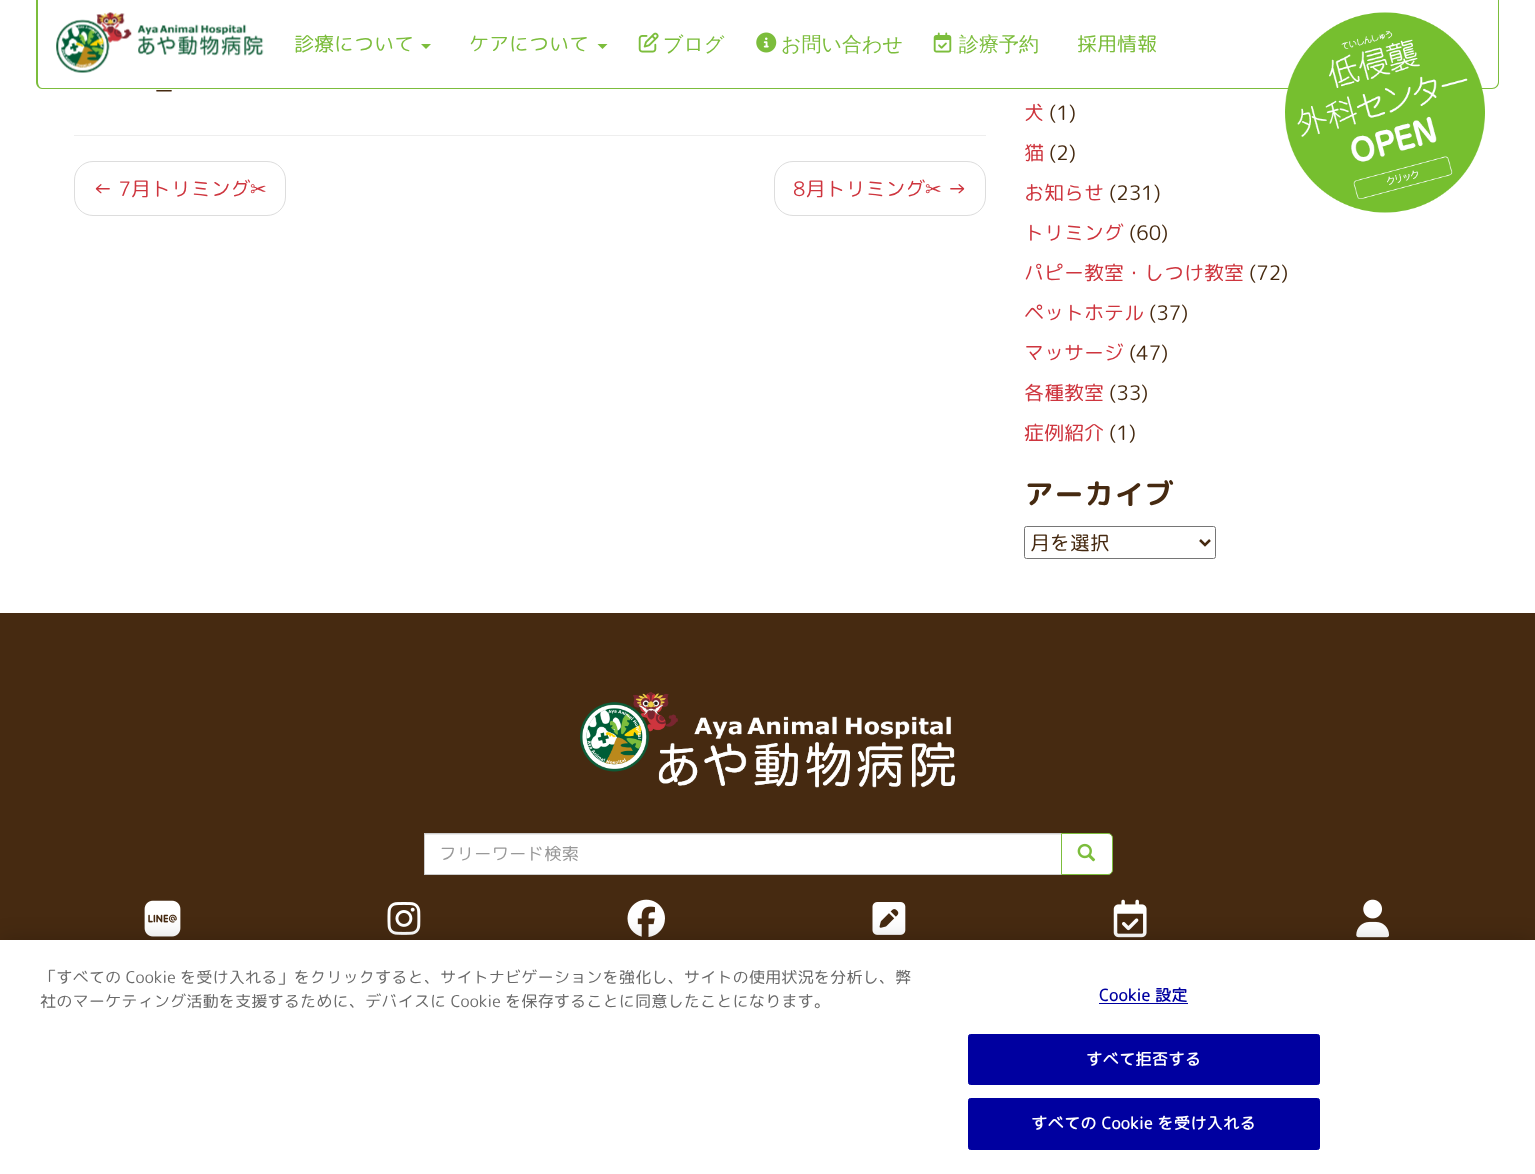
<!DOCTYPE html>
<meta charset="utf-8">
<style>body { margin: 0 } canvas { display: block }</style>
<canvas id="canvas" width="1535" height="1174"></canvas>
<script type="module">
  const canvas = document.getElementById("canvas");
  const ctx = canvas.getContext("2d");
  ctx.miterLimit = 4;
  ctx.fontKerning = "normal";
  async function loadImage(src) {
    const img = new Image();
    img.src = src;
    await img.decode();
    return img;
  }

  ctx.fillStyle = "#ffffff";
  ctx.fillRect(0, 0, 1535, 1174);
  ctx.fillStyle = "#7cbd3c";
  ctx.beginPath();
  ctx.moveTo(36, 0);
  ctx.lineTo(1499, 0);
  ctx.lineTo(1499, 82);
  ctx.bezierCurveTo(1499, 86, 1496, 89, 1492, 89);
  ctx.lineTo(42, 89);
  ctx.bezierCurveTo(39, 89, 36, 86, 36, 82);
  ctx.closePath();
  ctx.moveTo(38, 0);
  ctx.lineTo(1498, 0);
  ctx.lineTo(1498, 82);
  ctx.bezierCurveTo(1498, 85, 1495, 88, 1492, 88);
  ctx.lineTo(42, 88);
  ctx.bezierCurveTo(40, 88, 38, 85, 38, 82);
  ctx.closePath();
  ctx.fill("evenodd");
  ctx.drawImage(await loadImage("img1.png"), 56, 12, 76, 61);
  ctx.drawImage(await loadImage("img2.png"), 137, 24, 127, 32);
  ctx.font = "20px 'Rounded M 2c'";
  ctx.fillText("診療について", 294, 51);
  ctx.beginPath();
  ctx.moveTo(421, 44);
  ctx.lineTo(431, 44);
  ctx.lineTo(426, 49);
  ctx.closePath();
  ctx.fill();
  ctx.fillText("ケアについて", 469, 51);
  ctx.beginPath();
  ctx.moveTo(597.5, 44);
  ctx.lineTo(607.5, 44);
  ctx.lineTo(602.5, 49);
  ctx.closePath();
  ctx.fill();
  ctx.drawImage(await loadImage("img3.png"), 638, 32, 21, 21);
  ctx.font = "500 20px WenQuanYi Zen Hei";
  ctx.fillText("ブログ", 663, 51);
  ctx.drawImage(await loadImage("img4.png"), 756, 32, 21, 21);
  ctx.fillText("お問い合わせ", 781, 51);
  ctx.drawImage(await loadImage("img5.png"), 933, 32, 19, 21);
  ctx.fillText("診療予約", 959, 51);
  ctx.font = "20px 'Rounded M 2c'";
  ctx.fillText("採用情報", 1077, 51);
  ctx.drawImage(await loadImage("img6.png"), 1285, 12, 200, 201);
  ctx.fillStyle = "#462a11";
  ctx.fillText("ー", 154, 98);
  ctx.fillStyle = "#eeeeee";
  ctx.fillRect(74, 135, 912, 1);
  ctx.beginPath();
  ctx.roundRect(74.5, 161.5, 211, 54, 18.5);
  ctx.strokeStyle = "#dddddd";
  ctx.stroke();
  ctx.fillStyle = "#ce353e";
  ctx.fillText("← 7月トリミング", 93, 196);
  ctx.font = "20px DejaVu Sans";
  ctx.fillText("✂︎", 250, 196);
  ctx.beginPath();
  ctx.roundRect(774.5, 161.5, 211, 54, 18.5);
  ctx.stroke();
  ctx.font = "20px 'Rounded M 2c'";
  ctx.fillText("8月トリミング", 793, 196);
  ctx.font = "20px DejaVu Sans";
  ctx.fillText("✂︎", 925, 196);
  ctx.font = "20px 'Rounded M 2c'";
  ctx.fillText("→", 947, 196);
  ctx.fillText("犬", 1024, 120);
  ctx.fillStyle = "#462a11";
  ctx.fillText("(1)", 1049, 120);
  ctx.fillStyle = "#ce353e";
  ctx.fillText("猫", 1024, 160);
  ctx.fillStyle = "#462a11";
  ctx.fillText("(2)", 1049, 160);
  ctx.fillStyle = "#ce353e";
  ctx.fillText("お知らせ", 1024, 200);
  ctx.fillStyle = "#462a11";
  ctx.fillText("(231)", 1109, 200);
  ctx.fillStyle = "#ce353e";
  ctx.fillText("トリミング", 1024, 240);
  ctx.fillStyle = "#462a11";
  ctx.fillText("(60)", 1129, 240);
  ctx.fillStyle = "#ce353e";
  ctx.fillText("パピー教室・しつけ教室", 1024, 280);
  ctx.fillStyle = "#462a11";
  ctx.fillText("(72)", 1249, 280);
  ctx.fillStyle = "#ce353e";
  ctx.fillText("ペットホテル", 1024, 320);
  ctx.fillStyle = "#462a11";
  ctx.fillText("(37)", 1149, 320);
  ctx.fillStyle = "#ce353e";
  ctx.fillText("マッサージ", 1024, 360);
  ctx.fillStyle = "#462a11";
  ctx.fillText("(47)", 1129, 360);
  ctx.fillStyle = "#ce353e";
  ctx.fillText("各種教室", 1024, 400);
  ctx.fillStyle = "#462a11";
  ctx.fillText("(33)", 1109, 400);
  ctx.fillStyle = "#ce353e";
  ctx.fillText("症例紹介", 1024, 440);
  ctx.fillStyle = "#462a11";
  ctx.fillText("(1)", 1109, 440);
  ctx.font = "bold 30px 'Rounded M 2c'";
  ctx.fillText("アーカイブ", 1024, 505);
  ctx.beginPath();
  ctx.roundRect(1024.5, 526.5, 191, 32, 2);
  ctx.strokeStyle = "#767676";
  ctx.stroke();
  ctx.beginPath();
  ctx.moveTo(1200, 540);
  ctx.lineTo(1205, 545);
  ctx.lineTo(1210, 540);
  ctx.strokeStyle = "#462a11";
  ctx.lineWidth = 2.5;
  ctx.stroke();
  ctx.font = "20px 'Rounded M 2c'";
  ctx.fillText("月を選択", 1030, 550);
  ctx.fillRect(0, 613, 1535, 327);
  ctx.drawImage(await loadImage("img7.png"), 580, 692, 375, 96);
  ctx.fillStyle = "#ffffff";
  ctx.fillRect(425, 835, 636, 39);
  ctx.fillStyle = "#ececec";
  ctx.fillRect(425, 834, 636, 1);
  ctx.strokeStyle = "#cccccc";
  ctx.lineWidth = 1;
  ctx.strokeRect(424.5, 833.5, 638, 41);
  ctx.font = "17.5px 'Rounded M 2c'";
  ctx.fillStyle = "#999999";
  ctx.fillText("フリーワード検索", 439, 860);
  ctx.fillStyle = "#ffffff";
  ctx.beginPath();
  ctx.roundRect(1061.5, 833.5, 51, 41, [0, 4.5, 4.5, 0]);
  ctx.fill();
  ctx.strokeStyle = "#7cbd3c";
  ctx.stroke();
  ctx.drawImage(await loadImage("img8.png"), 1077, 843, 19, 19);
  ctx.drawImage(await loadImage("img9.png"), 144, 900, 37, 37);
  ctx.drawImage(await loadImage("img10.png"), 387, 902, 34, 33);
  ctx.drawImage(await loadImage("img11.png"), 627, 899, 38, 38);
  ctx.drawImage(await loadImage("img12.png"), 872, 902, 34, 33);
  ctx.drawImage(await loadImage("img13.png"), 1113, 899, 34, 39);
  ctx.drawImage(await loadImage("img14.png"), 1356, 899, 33, 39);
  ctx.fillStyle = "rgba(0, 0, 0, 0.2)";
  ctx.filter = "blur(11px)";
  ctx.beginPath();
  ctx.rect(0, 940, 1535, 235);
  ctx.fill();
  ctx.filter = "none";
  ctx.fillStyle = "#ffffff";
  ctx.fillRect(0, 940, 1535, 234);
  ctx.font = "16.25px 'Rounded M 2c'";
  ctx.fillStyle = "#696969";
  ctx.fillText("「すべての Cookie を受け入れる」をクリックすると、サイトナビゲーションを強化し、サイトの使用状況を分析し、弊", 40, 983);
  ctx.fillText("社のマーケティング活動を支援するために、デバイスに Cookie を保存することに同意したことになります。", 40, 1007);
  ctx.letterSpacing = "0.2px";
  ctx.font = "bold 16.25px 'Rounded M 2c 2'";
  ctx.fillStyle = "#0000a0";
  ctx.fillText("Cookie 設定", 1099, 1001);
  ctx.fillRect(1099, 1003, 89, 1);
  ctx.beginPath();
  ctx.roundRect(968.5, 1034.5, 351, 50, 2);
  ctx.fill();
  ctx.strokeStyle = "#0000a0";
  ctx.stroke();
  ctx.fillStyle = "#ffffff";
  ctx.fillText("すべて拒否する", 1086, 1065);
  ctx.fillStyle = "#0000a0";
  ctx.beginPath();
  ctx.roundRect(968.5, 1098.5, 351, 51, 2);
  ctx.fill();
  ctx.stroke();
  ctx.fillStyle = "#ffffff";
  ctx.fillText("すべての Cookie を受け入れる", 1031, 1129);
</script>
